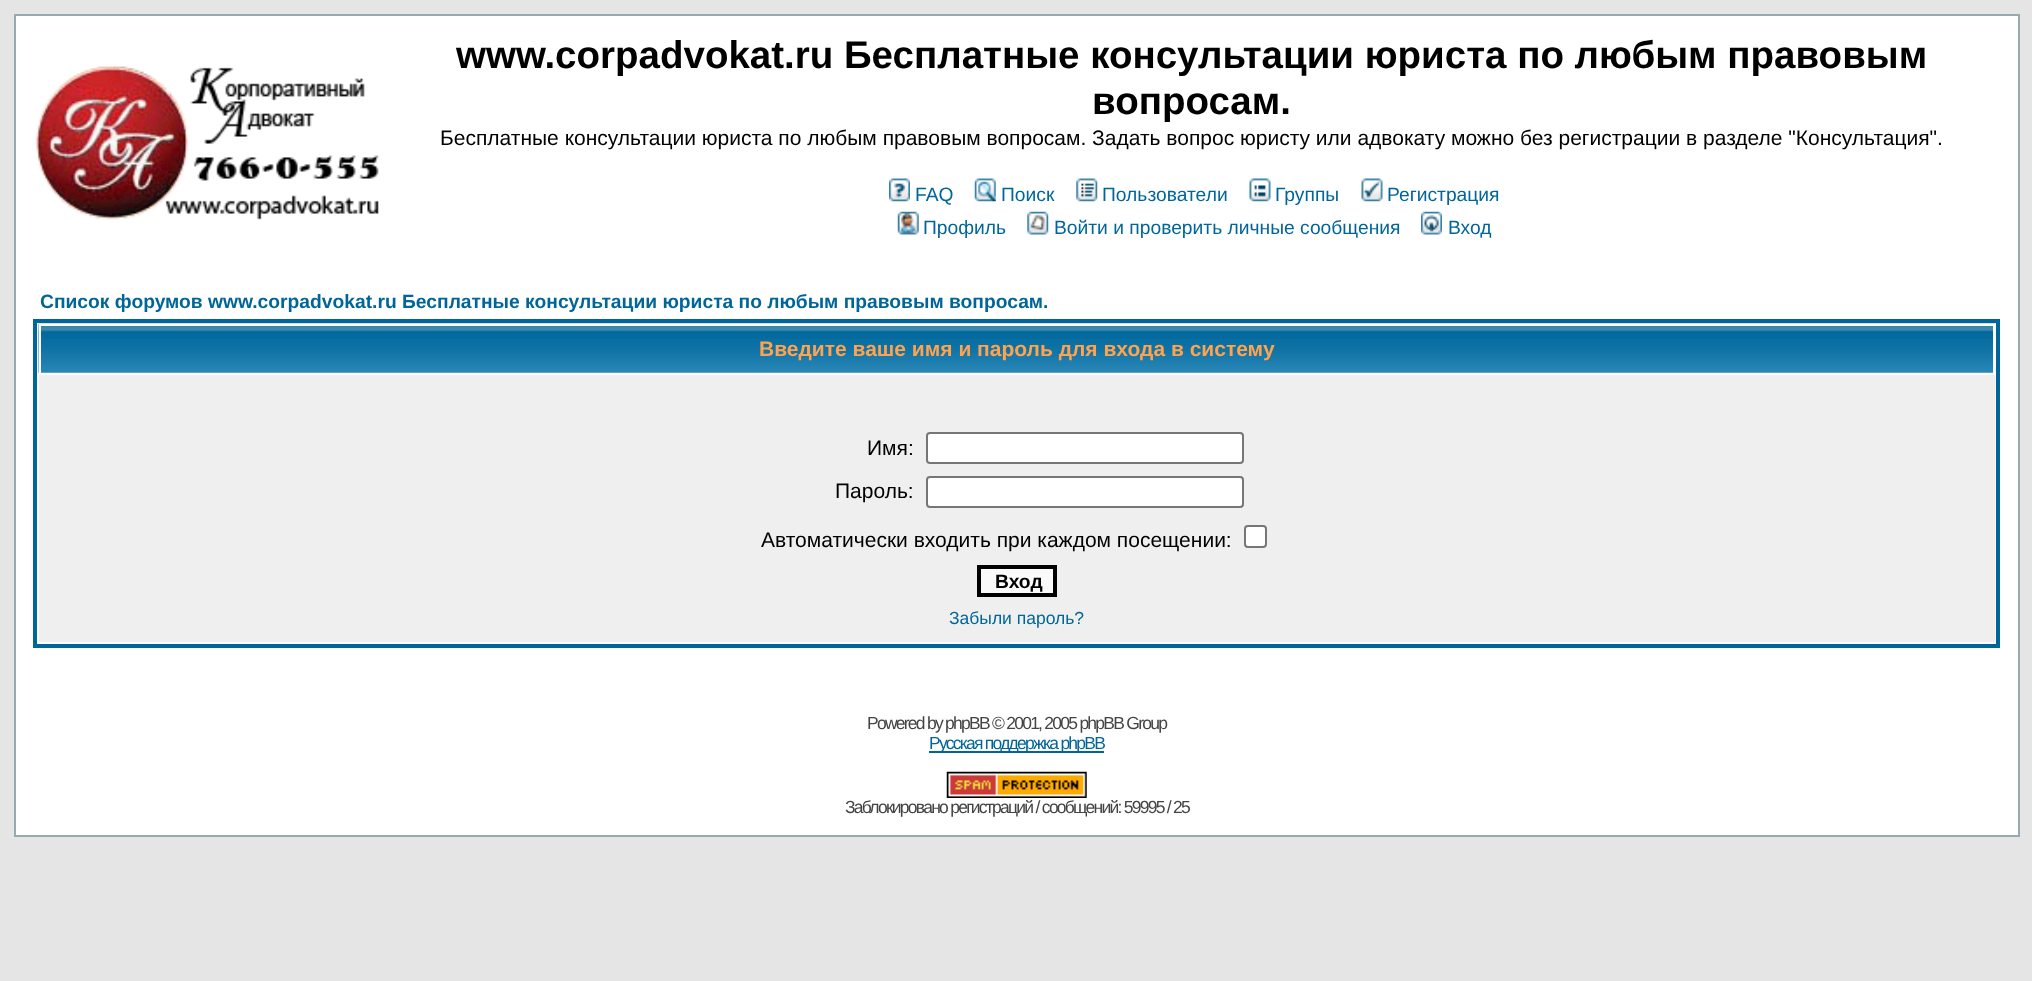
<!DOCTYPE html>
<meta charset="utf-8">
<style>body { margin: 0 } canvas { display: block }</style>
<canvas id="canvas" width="2032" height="981"></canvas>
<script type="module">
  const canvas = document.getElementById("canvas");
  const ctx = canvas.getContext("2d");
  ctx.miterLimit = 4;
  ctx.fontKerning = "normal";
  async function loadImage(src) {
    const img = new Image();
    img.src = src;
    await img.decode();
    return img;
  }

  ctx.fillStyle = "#e5e5e5";
  ctx.fillRect(0, 0, 2032, 981);
  ctx.fillStyle = "#ffffff";
  ctx.beginPath();
  ctx.rect(15, 15, 2004, 821);
  ctx.fill();
  ctx.strokeStyle = "#98aab1";
  ctx.lineWidth = 2;
  ctx.stroke();
  ctx.drawImage(await loadImage("img1.png"), 36, 66, 343, 154);
  ctx.font = "bold 38.5px Liberation Sans";
  ctx.fillStyle = "#000000";
  ctx.fillText("www.corpadvokat.ru Бесплатные консультации юриста по любым правовым", 456, 68);
  ctx.fillText("вопросам.", 1092, 114);
  ctx.font = "21px Liberation Sans";
  ctx.fillText("Бесплатные консультации юриста по любым правовым вопросам. Задать вопрос юристу или адвокату можно без регистрации в разделе \"Консультация\".", 440, 145);
  ctx.drawImage(await loadImage("img2.png"), 889, 178, 21, 24);
  ctx.font = "19.25px Liberation Sans";
  ctx.fillStyle = "#006699";
  ctx.fillText("FAQ", 915, 201);
  ctx.drawImage(await loadImage("img3.png"), 974, 178, 22, 24);
  ctx.fillText("Поиск", 1001, 201);
  ctx.drawImage(await loadImage("img4.png"), 1076, 178, 22, 24);
  ctx.fillText("Пользователи", 1102, 201);
  ctx.drawImage(await loadImage("img5.png"), 1249, 178, 22, 24);
  ctx.fillText("Группы", 1275, 201);
  ctx.drawImage(await loadImage("img6.png"), 1361, 178, 22, 24);
  ctx.fillText("Регистрация", 1387, 201);
  ctx.drawImage(await loadImage("img7.png"), 897, 211, 22, 24);
  ctx.fillText("Профиль", 923, 234);
  ctx.drawImage(await loadImage("img8.png"), 1027, 211, 22, 24);
  ctx.fillText("Войти и проверить личные сообщения", 1054, 234);
  ctx.drawImage(await loadImage("img9.png"), 1421, 211, 21, 24);
  ctx.fillText("Вход", 1448, 234);
  ctx.font = "bold 19.25px Liberation Sans";
  ctx.fillText("Список форумов www.corpadvokat.ru Бесплатные консультации юриста по любым правовым вопросам.", 40, 308);
  ctx.strokeStyle = "#006699";
  ctx.lineWidth = 4;
  ctx.strokeRect(35, 321, 1963, 325);
  ctx.drawImage(await loadImage("img10.png"), 38, 323, 1957, 50);
  ctx.fillStyle = "#ffffff";
  ctx.fillRect(39, 324, 1956, 2);
  ctx.fillRect(1993, 324, 2, 49);
  ctx.fillRect(39, 324, 2, 49);
  ctx.font = "bold 21px Liberation Sans";
  ctx.fillStyle = "#ffa34f";
  ctx.fillText("Введите ваше имя и пароль для входа в систему", 759, 356);
  ctx.fillStyle = "#efefef";
  ctx.fillRect(39, 375, 1956, 267);
  ctx.font = "21px Liberation Sans";
  ctx.fillStyle = "#000000";
  ctx.fillText("Имя:", 867, 455);
  ctx.fillStyle = "#ffffff";
  ctx.beginPath();
  ctx.roundRect(927, 433, 316, 30, 3);
  ctx.fill();
  ctx.strokeStyle = "#767676";
  ctx.lineWidth = 2;
  ctx.stroke();
  ctx.fillStyle = "#000000";
  ctx.fillText("Пароль:", 835, 498);
  ctx.fillStyle = "#ffffff";
  ctx.beginPath();
  ctx.roundRect(927, 477, 316, 30, 3);
  ctx.fill();
  ctx.stroke();
  ctx.fillStyle = "#000000";
  ctx.fillText("Автоматически входить при каждом посещении:", 761, 547);
  ctx.fillStyle = "#ffffff";
  ctx.beginPath();
  ctx.roundRect(1245, 526, 21, 21, 3);
  ctx.fill();
  ctx.stroke();
  ctx.fillStyle = "#fafafa";
  ctx.beginPath();
  ctx.rect(979, 567, 76, 28);
  ctx.fill();
  ctx.strokeStyle = "#000000";
  ctx.lineWidth = 4;
  ctx.stroke();
  ctx.font = "bold 19.25px Liberation Sans";
  ctx.fillStyle = "#000000";
  ctx.fillText("Вход", 995, 588);
  ctx.font = "17.5px Liberation Sans";
  ctx.fillStyle = "#006699";
  ctx.fillText("Забыли пароль?", 949, 624);
  ctx.letterSpacing = "-1.75px";
  ctx.fillStyle = "#444444";
  ctx.fillText("Powered by phpBB © 2001, 2005 phpBB Group", 867, 729);
  ctx.fillStyle = "#006699";
  ctx.fillRect(929, 751, 175, 2);
  ctx.fillText("Русская поддержка phpBB", 929, 749);
  ctx.drawImage(await loadImage("img11.png"), 946, 771, 141, 27);
  ctx.fillStyle = "#444444";
  ctx.fillText("Заблокировано регистраций / сообщений: 59995 / 25", 845, 813);
</script>
